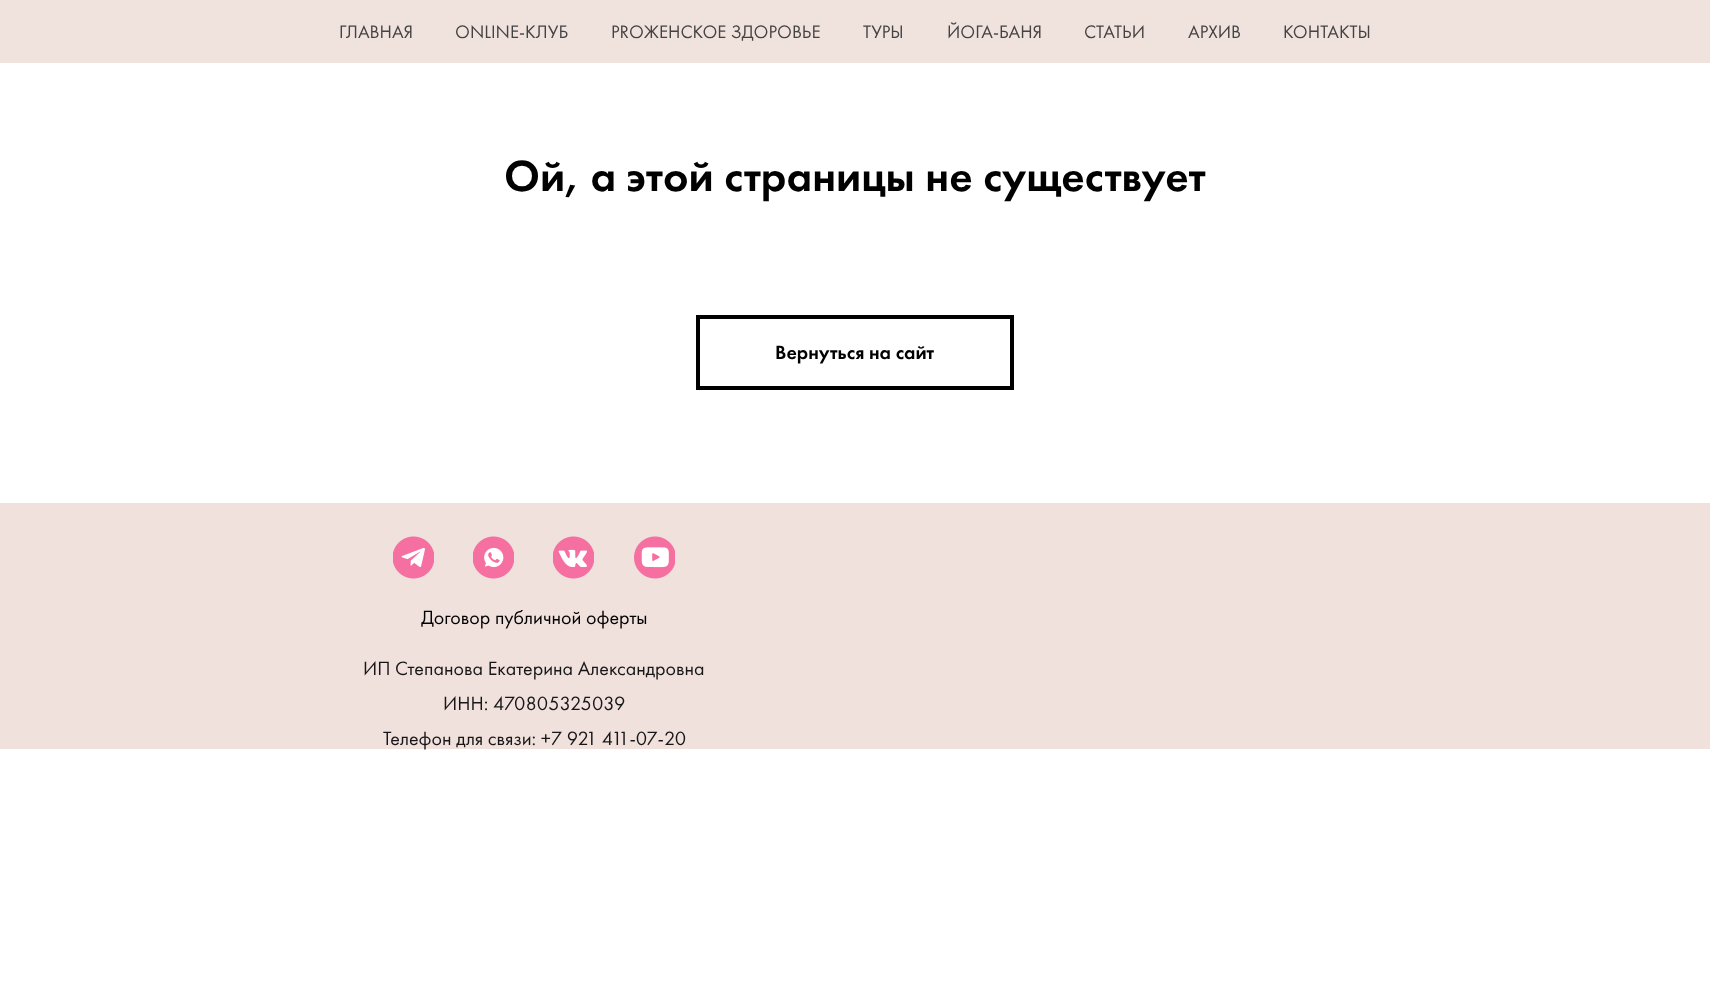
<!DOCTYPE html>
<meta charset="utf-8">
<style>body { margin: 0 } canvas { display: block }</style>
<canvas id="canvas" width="1710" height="986"></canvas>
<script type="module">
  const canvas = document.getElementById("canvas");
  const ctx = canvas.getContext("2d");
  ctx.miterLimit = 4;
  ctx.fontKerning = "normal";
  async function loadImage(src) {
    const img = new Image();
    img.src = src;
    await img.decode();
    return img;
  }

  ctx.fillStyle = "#ffffff";
  ctx.fillRect(0, 0, 1710, 986);
  ctx.fillStyle = "#f0e2dd";
  ctx.fillRect(0, 0, 1710, 63);
  ctx.font = "18.75px Futura PT";
  ctx.fillStyle = "#434343";
  ctx.fillText("ГЛАВНАЯ", 339, 38);
  ctx.fillText("ONLINE-КЛУБ", 455, 38);
  ctx.fillText("PROЖЕНСКОЕ ЗДОРОВЬЕ", 611, 38);
  ctx.fillText("ТУРЫ", 863, 38);
  ctx.fillText("ЙОГА-БАНЯ", 947, 38);
  ctx.fillText("СТАТЬИ", 1084, 38);
  ctx.fillText("АРХИВ", 1188, 38);
  ctx.fillText("КОНТАКТЫ", 1283, 38);
  ctx.font = "500 45px Futura PT";
  ctx.fillStyle = "#000000";
  ctx.fillText("Ой, а этой страницы не существует", 504, 191);
  ctx.strokeStyle = "#000000";
  ctx.lineWidth = 4;
  ctx.strokeRect(698, 317, 314, 71);
  ctx.font = "500 20px Futura PT";
  ctx.fillText("Вернуться на сайт", 775, 359);
  ctx.fillStyle = "#f0e1dd";
  ctx.fillRect(0, 503, 1710, 246);
  ctx.drawImage(await loadImage("img1.png"), 393, 536, 41, 43);
  ctx.drawImage(await loadImage("img2.png"), 473, 536, 41, 43);
  ctx.drawImage(await loadImage("img3.png"), 553, 536, 41, 43);
  ctx.drawImage(await loadImage("img4.png"), 634, 536, 41, 43);
  ctx.font = "20px Futura PT";
  ctx.fillStyle = "#000000";
  ctx.fillText("Договор публичной оферты", 421, 624);
  ctx.fillStyle = "#171717";
  ctx.fillText("ИП Степанова Екатерина Александровна", 363, 675);
  ctx.fillText("ИНН: 470805325039", 443, 710);
  ctx.fillText("Телефон для связи: +7 921 411-07-20", 383, 745);
</script>
